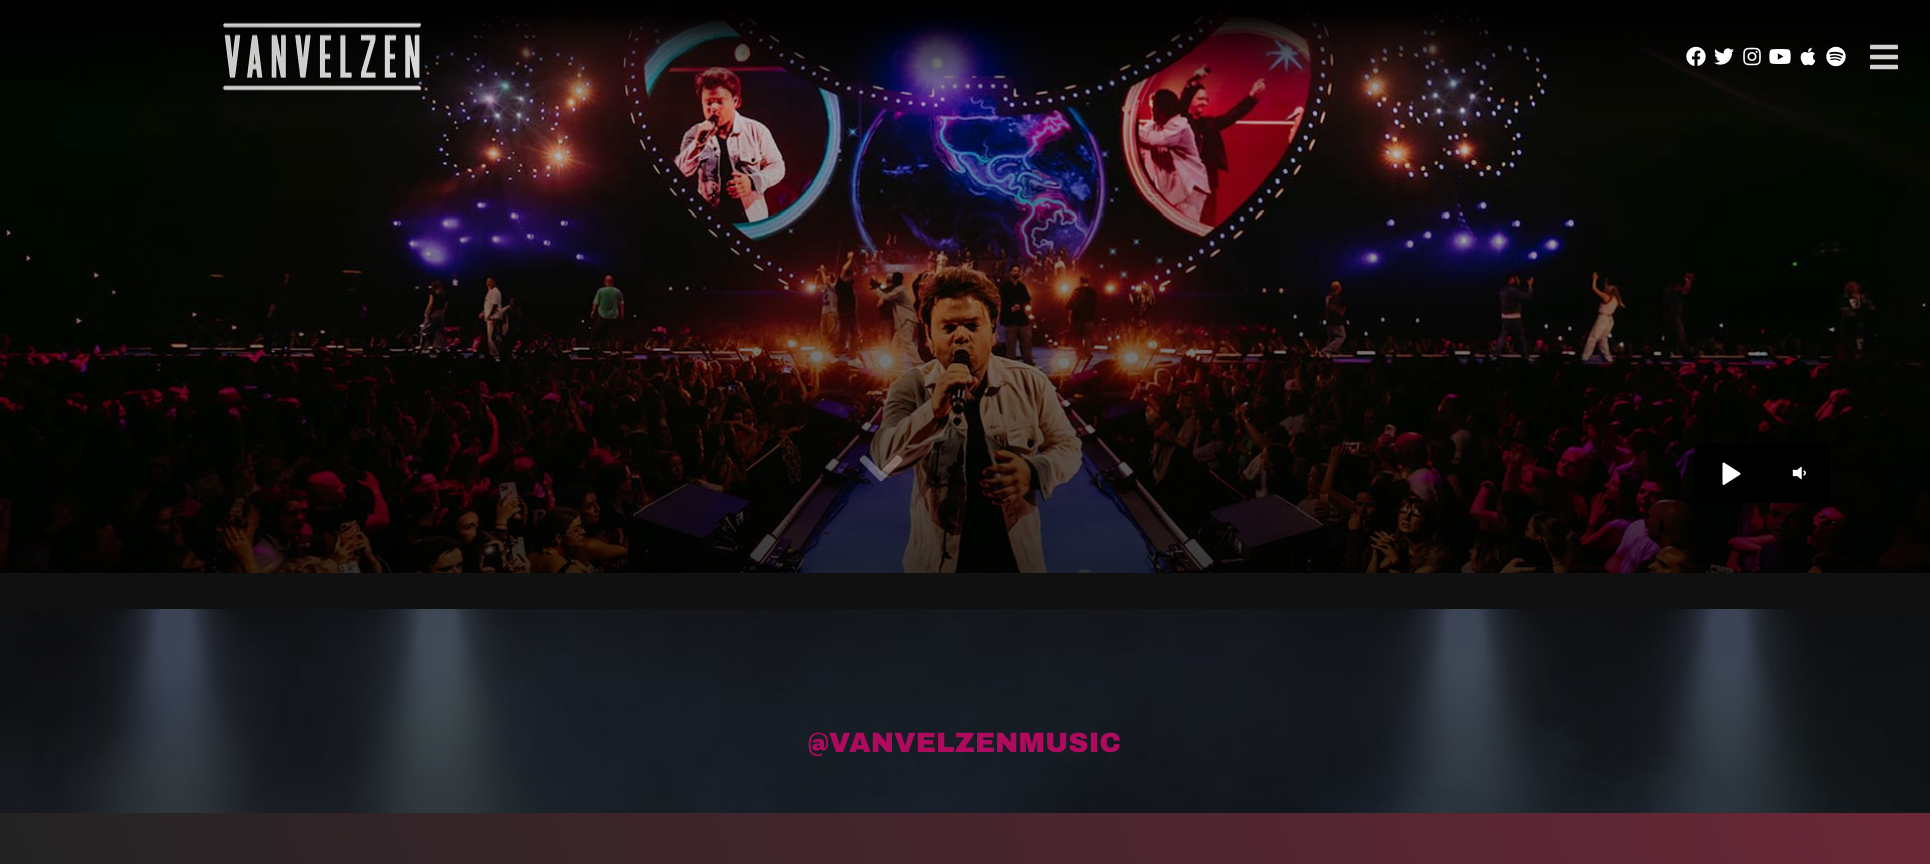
<!DOCTYPE html>
<meta charset="utf-8">
<style>body { margin: 0 } canvas { display: block }</style>
<canvas id="canvas" width="1930" height="864"></canvas>
<script type="module">
  const canvas = document.getElementById("canvas");
  const ctx = canvas.getContext("2d");
  ctx.miterLimit = 4;
  ctx.fontKerning = "normal";
  async function loadImage(src) {
    const img = new Image();
    img.src = src;
    await img.decode();
    return img;
  }
  let gradient;

  ctx.fillStyle = "#101010";
  ctx.fillRect(0, 0, 1930, 864);
  ctx.drawImage(await loadImage("img9.png"), 0, 0, 1930, 573);
  ctx.drawImage(await loadImage("img1.png"), 223, 22, 198, 69);
  ctx.drawImage(await loadImage("img2.png"), 1686, 46, 20, 20);
  ctx.drawImage(await loadImage("img3.png"), 1714, 48, 20, 17);
  ctx.drawImage(await loadImage("img4.png"), 1743, 47, 18, 19);
  ctx.drawImage(await loadImage("img5.png"), 1769, 49, 22, 15);
  ctx.drawImage(await loadImage("img6.png"), 1800, 47, 16, 19);
  ctx.drawImage(await loadImage("img7.png"), 1826, 46, 20, 21);
  ctx.drawImage(await loadImage("img8.png"), 1870, 44, 28, 26);
  ctx.drawImage(await loadImage("img10.png"), 859, 455, 44, 27);
  ctx.fillStyle = "#000000";
  ctx.beginPath();
  ctx.roundRect(1694, 443, 136, 60, 8);
  ctx.fill();
  ctx.drawImage(await loadImage("img11.png"), 1722, 462, 19, 23);
  ctx.drawImage(await loadImage("img12.png"), 1792, 466, 14, 14);
  ctx.drawImage(await loadImage("img13.png"), 0, 609, 1930, 204);
  ctx.font = "900 28px Archivo Black";
  ctx.fillStyle = "#ae0b5e";
  ctx.fillText("@VANVELZENMUSIC", 808, 752);
  gradient = ctx.createLinearGradient(105, 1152, 1825, 525);
  gradient.addColorStop(0, "#232323");
  gradient.addColorStop(0.99, "#692737");
  ctx.fillStyle = gradient;
  ctx.fillRect(0, 813, 1930, 51);
</script>
